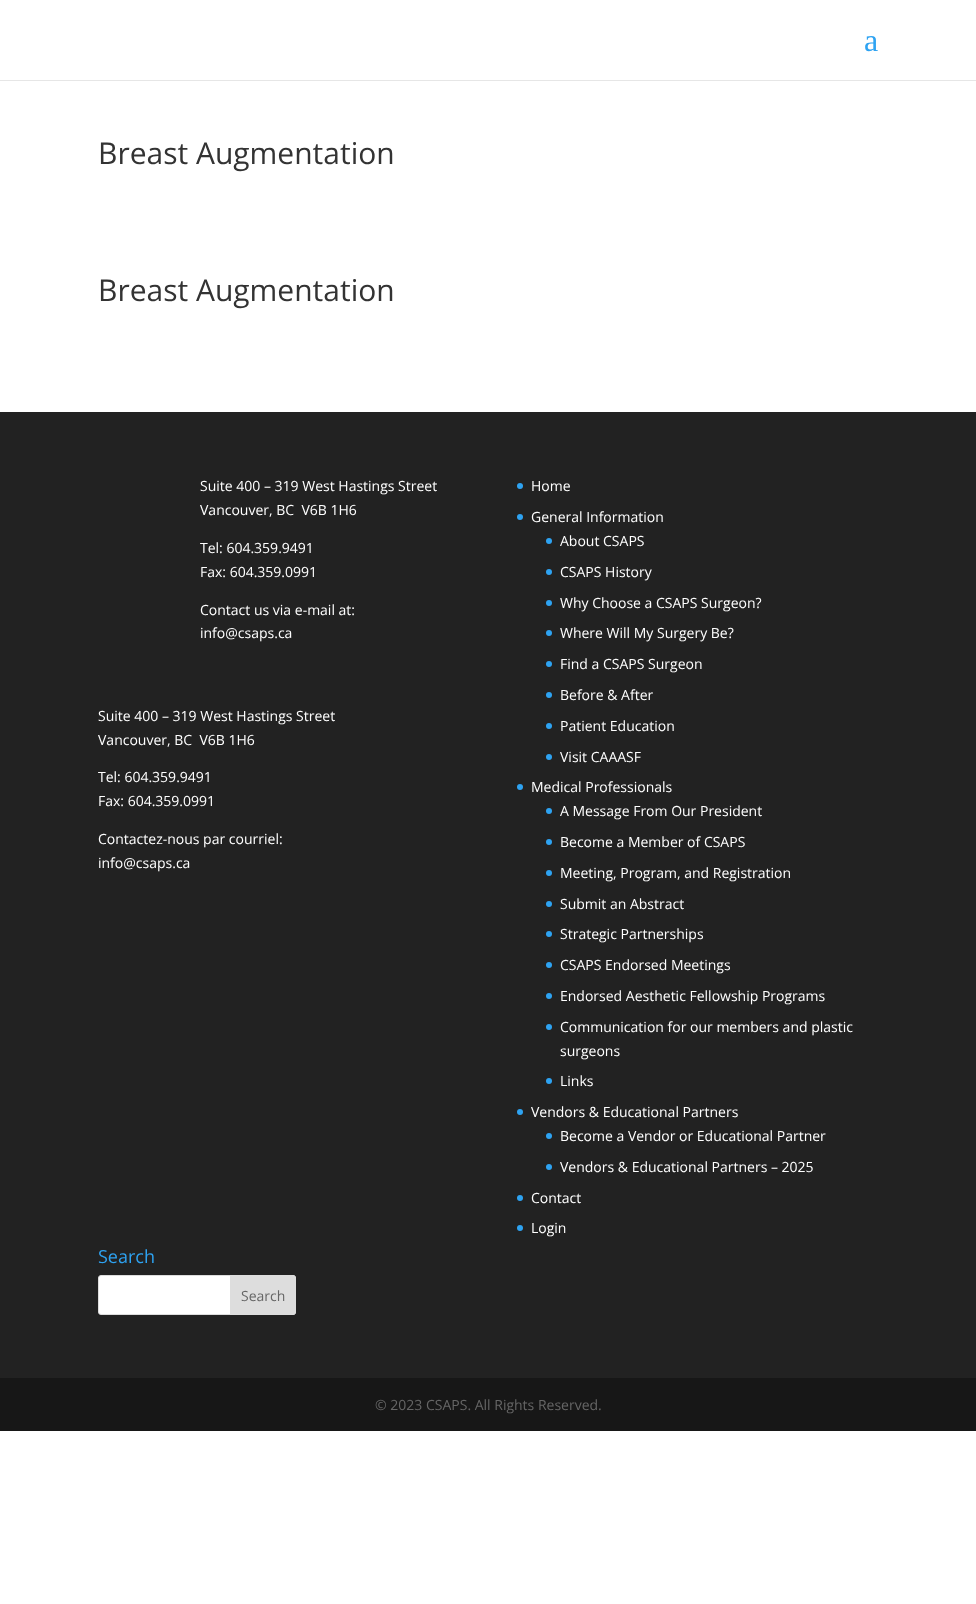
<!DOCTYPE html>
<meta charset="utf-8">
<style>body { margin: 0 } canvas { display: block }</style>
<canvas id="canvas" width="976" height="1604"></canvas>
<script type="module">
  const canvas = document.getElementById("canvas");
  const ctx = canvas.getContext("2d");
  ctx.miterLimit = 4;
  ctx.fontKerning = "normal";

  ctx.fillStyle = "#ffffff";
  ctx.fillRect(0, 0, 976, 1604);
  ctx.fillStyle = "#e6e6e6";
  ctx.fillRect(0, 80, 976, 1);
  ctx.font = "32px Liberation Serif";
  ctx.fillStyle = "#2ea3f2";
  ctx.fillText("a", 864, 51);
  ctx.font = "30px Open Sans";
  ctx.fillStyle = "#333333";
  ctx.fillText("Breast Augmentation", 98, 164);
  ctx.fillText("Breast Augmentation", 98, 301);
  ctx.fillStyle = "#222222";
  ctx.fillRect(0, 412, 976, 966);
  ctx.font = "14px Open Sans";
  ctx.fillStyle = "#ffffff";
  ctx.fillText("Suite 400 – 319 West Hastings Street", 200, 491);
  ctx.fillText("Vancouver, BC  V6B 1H6", 200, 515);
  ctx.fillText("Tel: 604.359.9491", 200, 553);
  ctx.fillText("Fax: 604.359.0991", 200, 577);
  ctx.fillText("Contact us via e-mail at:", 200, 615);
  ctx.fillText("info@csaps.ca", 200, 638);
  ctx.fillText("Suite 400 – 319 West Hastings Street", 98, 721);
  ctx.fillText("Vancouver, BC  V6B 1H6", 98, 745);
  ctx.fillText("Tel: 604.359.9491", 98, 782);
  ctx.fillText("Fax: 604.359.0991", 98, 806);
  ctx.fillText("Contactez-nous par courriel:", 98, 844);
  ctx.fillText("info@csaps.ca", 98, 868);
  ctx.fillStyle = "#2ea3f2";
  ctx.beginPath();
  ctx.arc(520, 486, 3, 0, Math.PI * 2);
  ctx.fill();
  ctx.fillStyle = "#ffffff";
  ctx.fillText("Home", 531, 491);
  ctx.fillStyle = "#2ea3f2";
  ctx.beginPath();
  ctx.arc(520, 517, 3, 0, Math.PI * 2);
  ctx.fill();
  ctx.fillStyle = "#ffffff";
  ctx.fillText("General Information", 531, 522);
  ctx.fillStyle = "#2ea3f2";
  ctx.beginPath();
  ctx.arc(549, 541, 3, 0, Math.PI * 2);
  ctx.fill();
  ctx.fillStyle = "#ffffff";
  ctx.fillText("About CSAPS", 560, 546);
  ctx.fillStyle = "#2ea3f2";
  ctx.beginPath();
  ctx.arc(549, 572, 3, 0, Math.PI * 2);
  ctx.fill();
  ctx.fillStyle = "#ffffff";
  ctx.fillText("CSAPS History", 560, 577);
  ctx.fillStyle = "#2ea3f2";
  ctx.beginPath();
  ctx.arc(549, 603, 3, 0, Math.PI * 2);
  ctx.fill();
  ctx.fillStyle = "#ffffff";
  ctx.fillText("Why Choose a CSAPS Surgeon?", 560, 608);
  ctx.fillStyle = "#2ea3f2";
  ctx.beginPath();
  ctx.arc(549, 633, 3, 0, Math.PI * 2);
  ctx.fill();
  ctx.fillStyle = "#ffffff";
  ctx.fillText("Where Will My Surgery Be?", 560, 638);
  ctx.fillStyle = "#2ea3f2";
  ctx.beginPath();
  ctx.arc(549, 664, 3, 0, Math.PI * 2);
  ctx.fill();
  ctx.fillStyle = "#ffffff";
  ctx.fillText("Find a CSAPS Surgeon", 560, 669);
  ctx.fillStyle = "#2ea3f2";
  ctx.beginPath();
  ctx.arc(549, 695, 3, 0, Math.PI * 2);
  ctx.fill();
  ctx.fillStyle = "#ffffff";
  ctx.fillText("Before & After", 560, 700);
  ctx.fillStyle = "#2ea3f2";
  ctx.beginPath();
  ctx.arc(549, 726, 3, 0, Math.PI * 2);
  ctx.fill();
  ctx.fillStyle = "#ffffff";
  ctx.fillText("Patient Education", 560, 731);
  ctx.fillStyle = "#2ea3f2";
  ctx.beginPath();
  ctx.arc(549, 757, 3, 0, Math.PI * 2);
  ctx.fill();
  ctx.fillStyle = "#ffffff";
  ctx.fillText("Visit CAAASF", 560, 762);
  ctx.fillStyle = "#2ea3f2";
  ctx.beginPath();
  ctx.arc(520, 787, 3, 0, Math.PI * 2);
  ctx.fill();
  ctx.fillStyle = "#ffffff";
  ctx.fillText("Medical Professionals", 531, 792);
  ctx.fillStyle = "#2ea3f2";
  ctx.beginPath();
  ctx.arc(549, 811, 3, 0, Math.PI * 2);
  ctx.fill();
  ctx.fillStyle = "#ffffff";
  ctx.fillText("A Message From Our President", 560, 816);
  ctx.fillStyle = "#2ea3f2";
  ctx.beginPath();
  ctx.arc(549, 842, 3, 0, Math.PI * 2);
  ctx.fill();
  ctx.fillStyle = "#ffffff";
  ctx.fillText("Become a Member of CSAPS", 560, 847);
  ctx.fillStyle = "#2ea3f2";
  ctx.beginPath();
  ctx.arc(549, 873, 3, 0, Math.PI * 2);
  ctx.fill();
  ctx.fillStyle = "#ffffff";
  ctx.fillText("Meeting, Program, and Registration", 560, 878);
  ctx.fillStyle = "#2ea3f2";
  ctx.beginPath();
  ctx.arc(549, 904, 3, 0, Math.PI * 2);
  ctx.fill();
  ctx.fillStyle = "#ffffff";
  ctx.fillText("Submit an Abstract", 560, 909);
  ctx.fillStyle = "#2ea3f2";
  ctx.beginPath();
  ctx.arc(549, 934, 3, 0, Math.PI * 2);
  ctx.fill();
  ctx.fillStyle = "#ffffff";
  ctx.fillText("Strategic Partnerships", 560, 939);
  ctx.fillStyle = "#2ea3f2";
  ctx.beginPath();
  ctx.arc(549, 965, 3, 0, Math.PI * 2);
  ctx.fill();
  ctx.fillStyle = "#ffffff";
  ctx.fillText("CSAPS Endorsed Meetings", 560, 970);
  ctx.fillStyle = "#2ea3f2";
  ctx.beginPath();
  ctx.arc(549, 996, 3, 0, Math.PI * 2);
  ctx.fill();
  ctx.fillStyle = "#ffffff";
  ctx.fillText("Endorsed Aesthetic Fellowship Programs", 560, 1001);
  ctx.fillStyle = "#2ea3f2";
  ctx.beginPath();
  ctx.arc(549, 1027, 3, 0, Math.PI * 2);
  ctx.fill();
  ctx.fillStyle = "#ffffff";
  ctx.fillText("Communication for our members and plastic", 560, 1032);
  ctx.fillText("surgeons", 560, 1056);
  ctx.fillStyle = "#2ea3f2";
  ctx.beginPath();
  ctx.arc(549, 1081, 3, 0, Math.PI * 2);
  ctx.fill();
  ctx.fillStyle = "#ffffff";
  ctx.fillText("Links", 560, 1086);
  ctx.fillStyle = "#2ea3f2";
  ctx.beginPath();
  ctx.arc(520, 1112, 3, 0, Math.PI * 2);
  ctx.fill();
  ctx.fillStyle = "#ffffff";
  ctx.fillText("Vendors & Educational Partners", 531, 1117);
  ctx.fillStyle = "#2ea3f2";
  ctx.beginPath();
  ctx.arc(549, 1136, 3, 0, Math.PI * 2);
  ctx.fill();
  ctx.fillStyle = "#ffffff";
  ctx.fillText("Become a Vendor or Educational Partner", 560, 1141);
  ctx.fillStyle = "#2ea3f2";
  ctx.beginPath();
  ctx.arc(549, 1167, 3, 0, Math.PI * 2);
  ctx.fill();
  ctx.fillStyle = "#ffffff";
  ctx.fillText("Vendors & Educational Partners – 2025", 560, 1172);
  ctx.fillStyle = "#2ea3f2";
  ctx.beginPath();
  ctx.arc(520, 1198, 3, 0, Math.PI * 2);
  ctx.fill();
  ctx.fillStyle = "#ffffff";
  ctx.fillText("Contact", 531, 1203);
  ctx.fillStyle = "#2ea3f2";
  ctx.beginPath();
  ctx.arc(520, 1228, 3, 0, Math.PI * 2);
  ctx.fill();
  ctx.fillStyle = "#ffffff";
  ctx.fillText("Login", 531, 1233);
  ctx.font = "18px Open Sans";
  ctx.fillStyle = "#2ea3f2";
  ctx.fillText("Search", 98, 1263);
  ctx.fillStyle = "#ffffff";
  ctx.beginPath();
  ctx.roundRect(98.5, 1275.5, 197, 39, 2.5);
  ctx.fill();
  ctx.strokeStyle = "#dddddd";
  ctx.stroke();
  ctx.fillStyle = "#dddddd";
  ctx.beginPath();
  ctx.roundRect(230.5, 1275.5, 65, 39, [0, 2.5, 2.5, 0]);
  ctx.fill();
  ctx.stroke();
  ctx.font = "14px Open Sans";
  ctx.fillStyle = "#666666";
  ctx.fillText("Search", 241, 1301);
  ctx.fillStyle = "#171717";
  ctx.fillRect(0, 1378, 976, 53);
  ctx.fillStyle = "#666666";
  ctx.fillText("© 2023 CSAPS. All Rights Reserved.", 375, 1410);
</script>
